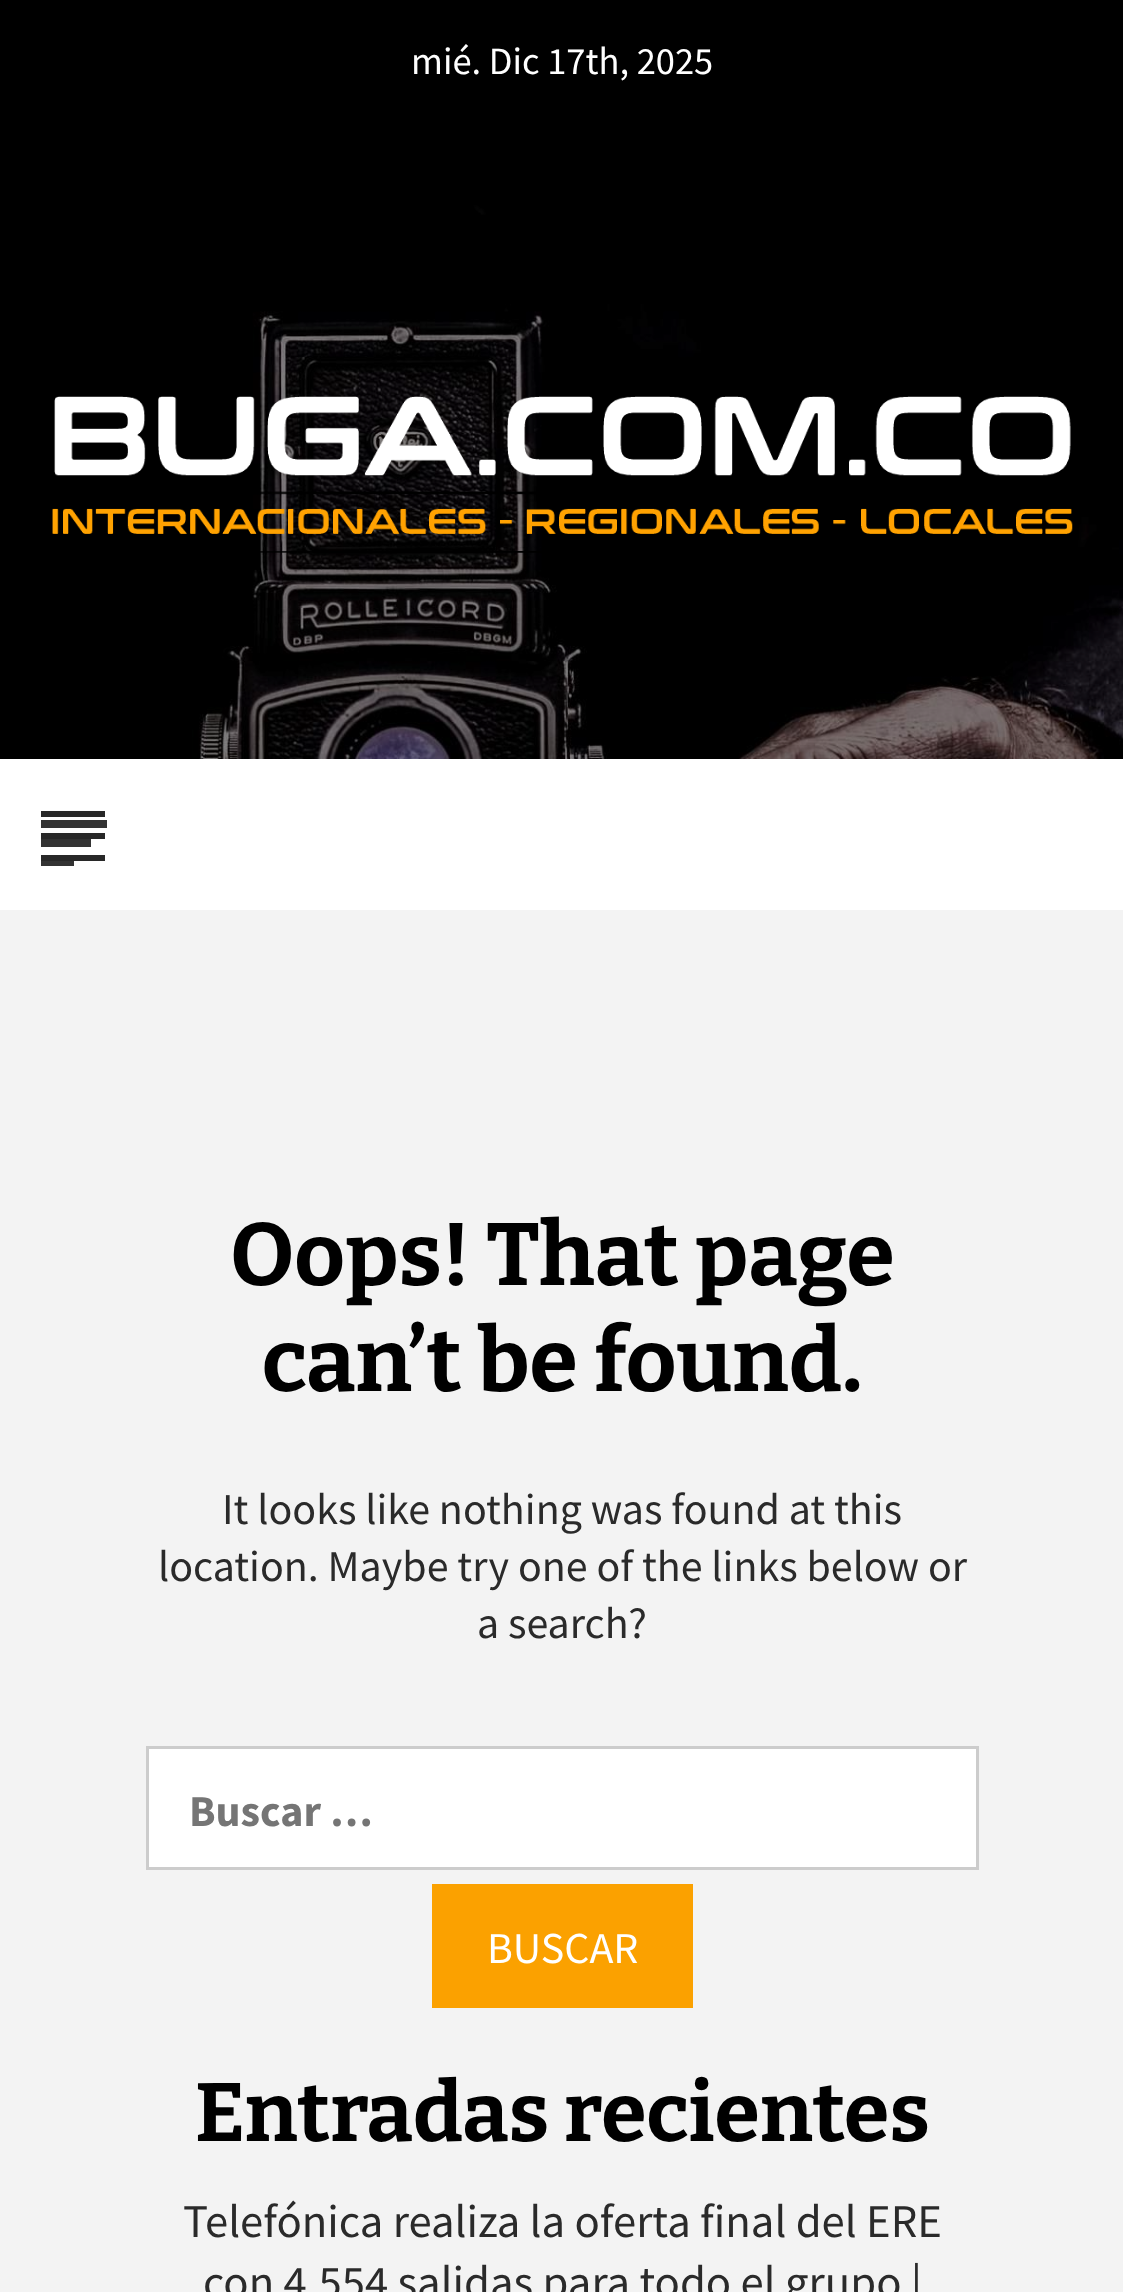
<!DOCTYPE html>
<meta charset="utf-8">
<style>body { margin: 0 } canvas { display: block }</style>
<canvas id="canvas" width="1123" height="2292"></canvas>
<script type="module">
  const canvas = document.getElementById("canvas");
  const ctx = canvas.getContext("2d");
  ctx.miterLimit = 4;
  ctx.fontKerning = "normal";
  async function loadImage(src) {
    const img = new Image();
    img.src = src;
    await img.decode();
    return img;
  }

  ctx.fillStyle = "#f3f3f3";
  ctx.fillRect(0, 0, 1123, 2292);
  ctx.fillStyle = "#000000";
  ctx.fillRect(0, 0, 1123, 190);
  ctx.font = "38.5px Source Sans Pro";
  ctx.fillStyle = "#ffffff";
  ctx.fillText("mié. Dic 17th, 2025", 411, 74);
  ctx.drawImage(await loadImage("img1.png"), 0, 190, 1123, 569);
  ctx.drawImage(await loadImage("img2.png"), 52, 396, 1021, 157);
  ctx.fillRect(0, 759, 1123, 151);
  ctx.fillStyle = "#282828";
  ctx.fillRect(41, 833, 64, 6);
  ctx.fillRect(41, 811, 64, 6);
  ctx.fillRect(41, 855, 64, 6);
  ctx.fillStyle = "#333333";
  ctx.fillRect(41, 820, 66, 8);
  ctx.fillRect(41, 839, 50, 8);
  ctx.fillRect(41, 861, 33, 5);
  ctx.font = "bold 88px Bitter";
  ctx.fillStyle = "#000000";
  ctx.fillText("Oops! That page", 230, 1285);
  ctx.fillText("can’t be found.", 262, 1391);
  ctx.font = "44px Source Sans Pro";
  ctx.fillStyle = "#2a2a2a";
  ctx.fillText("It looks like nothing was found at this", 222, 1524);
  ctx.fillText("location. Maybe try one of the links below or", 158, 1581);
  ctx.fillText("a search?", 477, 1638);
  ctx.fillStyle = "#ffffff";
  ctx.beginPath();
  ctx.rect(147.5, 1747.5, 830, 121);
  ctx.fill();
  ctx.strokeStyle = "#cccccc";
  ctx.lineWidth = 3;
  ctx.stroke();
  ctx.font = "bold 44px Source Sans Pro";
  ctx.fillStyle = "#757575";
  ctx.fillText("Buscar …", 189, 1826);
  ctx.fillStyle = "#fba100";
  ctx.fillRect(432, 1884, 261, 124);
  ctx.font = "44px Source Sans Pro";
  ctx.fillStyle = "#ffffff";
  ctx.fillText("BUSCAR", 487, 1963);
  ctx.font = "bold 82.5px Bitter";
  ctx.fillStyle = "#000000";
  ctx.fillText("Entradas recientes", 195, 2141);
  ctx.font = "46.75px Source Sans Pro";
  ctx.fillStyle = "#2a2a2a";
  ctx.fillText("Telefónica realiza la oferta final del ERE", 183, 2237);
  ctx.fillText("con 4.554 salidas para todo el grupo |", 203, 2298);
</script>
